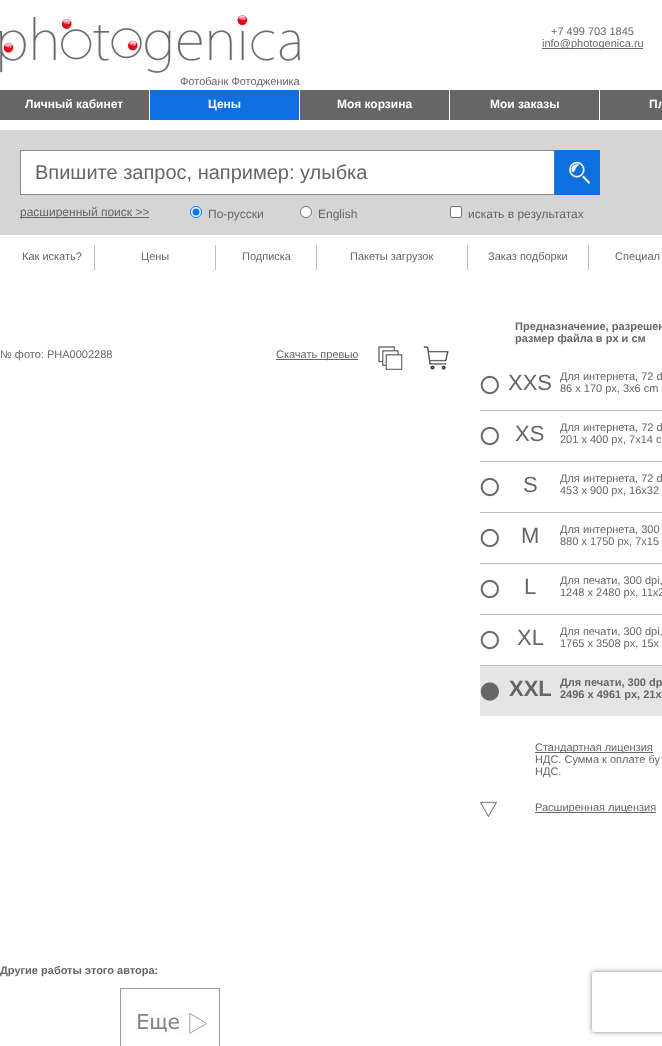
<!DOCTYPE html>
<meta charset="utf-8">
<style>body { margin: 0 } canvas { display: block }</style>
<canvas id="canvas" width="662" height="1046"></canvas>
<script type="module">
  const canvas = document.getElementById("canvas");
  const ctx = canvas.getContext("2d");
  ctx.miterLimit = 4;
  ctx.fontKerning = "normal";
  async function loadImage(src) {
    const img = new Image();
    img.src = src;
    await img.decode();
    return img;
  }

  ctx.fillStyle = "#ffffff";
  ctx.fillRect(0, 0, 662, 1046);
  ctx.drawImage(await loadImage("img1.png"), 0, 15, 300, 58);
  ctx.font = "11px Liberation Sans";
  ctx.fillStyle = "#666666";
  ctx.fillText("+7 499 703 1845", 551, 35);
  ctx.fillRect(542, 48, 101, 1);
  ctx.fillText("info@photogenica.ru", 542, 47);
  ctx.fillText("Фотобанк Фотодженика", 180, 85);
  ctx.fillRect(0, 90, 149, 30);
  ctx.font = "bold 12px Liberation Sans";
  ctx.fillStyle = "#ffffff";
  ctx.fillText("Личный кабинет", 25, 108);
  ctx.fillStyle = "#0e6fe0";
  ctx.fillRect(150, 90, 149, 30);
  ctx.fillStyle = "#ffffff";
  ctx.fillText("Цены", 208, 108);
  ctx.fillStyle = "#666666";
  ctx.fillRect(300, 90, 149, 30);
  ctx.fillStyle = "#ffffff";
  ctx.fillText("Моя корзина", 337, 108);
  ctx.fillStyle = "#666666";
  ctx.fillRect(450, 90, 149, 30);
  ctx.fillStyle = "#ffffff";
  ctx.fillText("Мои заказы", 490, 108);
  ctx.fillStyle = "#666666";
  ctx.fillRect(600, 90, 62, 30);
  ctx.fillStyle = "#ffffff";
  ctx.fillText("Пл", 649, 108);
  ctx.fillStyle = "#d5d5d5";
  ctx.fillRect(0, 130, 662, 105);
  ctx.drawImage(await loadImage("img2.png"), 20, 150, 535, 45);
  ctx.font = "20px Liberation Sans";
  ctx.fillStyle = "#666666";
  ctx.fillText("Впишите запрос, например: улыбка", 35, 179);
  ctx.drawImage(await loadImage("img3.png"), 555, 150, 45, 45);
  ctx.fillRect(20, 217, 129, 1);
  ctx.font = "12px Liberation Sans";
  ctx.fillText("расширенный поиск >>", 20, 216);
  ctx.fillStyle = "#ffffff";
  ctx.beginPath();
  ctx.arc(196, 212, 5.5, 0, Math.PI * 2);
  ctx.fill();
  ctx.strokeStyle = "#0075ff";
  ctx.stroke();
  ctx.fillStyle = "#0075ff";
  ctx.beginPath();
  ctx.arc(196, 212, 3.5, 0, Math.PI * 2);
  ctx.fill();
  ctx.fillStyle = "#666666";
  ctx.fillText("По-русски", 208, 218);
  ctx.fillStyle = "#ffffff";
  ctx.beginPath();
  ctx.arc(306, 212, 5.5, 0, Math.PI * 2);
  ctx.fill();
  ctx.strokeStyle = "#767676";
  ctx.stroke();
  ctx.fillStyle = "#666666";
  ctx.fillText("English", 318, 218);
  ctx.fillStyle = "#ffffff";
  ctx.beginPath();
  ctx.roundRect(450.5, 206.5, 11, 11, 1.5);
  ctx.fill();
  ctx.stroke();
  ctx.fillStyle = "#666666";
  ctx.fillText("искать в результатах", 468, 218);
  ctx.font = "11px Liberation Sans";
  ctx.fillText("Как искать?", 22, 260);
  ctx.fillStyle = "#bebebe";
  ctx.fillRect(94, 245, 1, 25);
  ctx.fillStyle = "#666666";
  ctx.fillText("Цены", 141, 260);
  ctx.fillStyle = "#bebebe";
  ctx.fillRect(215, 245, 1, 25);
  ctx.fillStyle = "#666666";
  ctx.fillText("Подписка", 242, 260);
  ctx.fillStyle = "#bebebe";
  ctx.fillRect(316, 245, 1, 25);
  ctx.fillStyle = "#666666";
  ctx.fillText("Пакеты загрузок", 350, 260);
  ctx.fillStyle = "#bebebe";
  ctx.fillRect(467, 245, 1, 25);
  ctx.fillStyle = "#666666";
  ctx.fillText("Заказ подборки", 488, 260);
  ctx.fillStyle = "#bebebe";
  ctx.fillRect(588, 245, 1, 25);
  ctx.fillStyle = "#666666";
  ctx.fillText("Специал", 615, 260);
  ctx.fillText("№ фото: PHA0002288", 0, 358);
  ctx.fillRect(276, 359, 82, 1);
  ctx.fillText("Скачать превью", 276, 358);
  ctx.drawImage(await loadImage("img4.png"), 378, 346, 25, 24);
  ctx.drawImage(await loadImage("img5.png"), 423, 346, 26, 24);
  ctx.font = "bold 11px Liberation Sans";
  ctx.fillText("Предназначение, разрешен", 515, 330);
  ctx.fillText("размер файла в px и см", 515, 342);
  ctx.drawImage(await loadImage("img6.png"), 480, 375, 20, 20);
  ctx.font = "22px Liberation Sans";
  ctx.fillText("XXS", 508, 390);
  ctx.font = "11px Liberation Sans";
  ctx.fillText("Для интернета, 72 d", 560, 380);
  ctx.fillText("86 x 170 px, 3x6 cm", 560, 392);
  ctx.fillStyle = "#bebebe";
  ctx.fillRect(480, 410, 182, 1);
  ctx.drawImage(await loadImage("img6.png"), 480, 426, 20, 20);
  ctx.font = "22px Liberation Sans";
  ctx.fillStyle = "#666666";
  ctx.fillText("XS", 515, 441);
  ctx.font = "11px Liberation Sans";
  ctx.fillText("Для интернета, 72 d", 560, 431);
  ctx.fillText("201 x 400 px, 7x14 c", 560, 443);
  ctx.fillStyle = "#bebebe";
  ctx.fillRect(480, 461, 182, 1);
  ctx.drawImage(await loadImage("img6.png"), 480, 477, 20, 20);
  ctx.font = "22px Liberation Sans";
  ctx.fillStyle = "#666666";
  ctx.fillText("S", 523, 492);
  ctx.font = "11px Liberation Sans";
  ctx.fillText("Для интернета, 72 d", 560, 482);
  ctx.fillText("453 x 900 px, 16x32", 560, 494);
  ctx.fillStyle = "#bebebe";
  ctx.fillRect(480, 512, 182, 1);
  ctx.drawImage(await loadImage("img6.png"), 480, 528, 20, 20);
  ctx.font = "22px Liberation Sans";
  ctx.fillStyle = "#666666";
  ctx.fillText("M", 521, 543);
  ctx.font = "11px Liberation Sans";
  ctx.fillText("Для интернета, 300", 560, 533);
  ctx.fillText("880 x 1750 px, 7x15", 560, 545);
  ctx.fillStyle = "#bebebe";
  ctx.fillRect(480, 563, 182, 1);
  ctx.drawImage(await loadImage("img6.png"), 480, 579, 20, 20);
  ctx.font = "22px Liberation Sans";
  ctx.fillStyle = "#666666";
  ctx.fillText("L", 524, 594);
  ctx.font = "11px Liberation Sans";
  ctx.fillText("Для печати, 300 dpi,", 560, 584);
  ctx.fillText("1248 x 2480 px, 11x2", 560, 596);
  ctx.fillStyle = "#bebebe";
  ctx.fillRect(480, 614, 182, 1);
  ctx.drawImage(await loadImage("img6.png"), 480, 630, 20, 20);
  ctx.font = "22px Liberation Sans";
  ctx.fillStyle = "#666666";
  ctx.fillText("XL", 517, 645);
  ctx.font = "11px Liberation Sans";
  ctx.fillText("Для печати, 300 dpi,", 560, 635);
  ctx.fillText("1765 x 3508 px, 15x", 560, 647);
  ctx.fillStyle = "#e5e5e5";
  ctx.fillRect(480, 666, 182, 50);
  ctx.fillStyle = "#bebebe";
  ctx.fillRect(480, 665, 182, 1);
  ctx.drawImage(await loadImage("img7.png"), 480, 681, 19, 20);
  ctx.font = "bold 22px Liberation Sans";
  ctx.fillStyle = "#666666";
  ctx.fillText("XXL", 509, 696);
  ctx.font = "bold 11px Liberation Sans";
  ctx.fillText("Для печати, 300 dp", 560, 686);
  ctx.fillText("2496 x 4961 px, 21x", 560, 698);
  ctx.drawImage(await loadImage("img8.png"), 480, 801, 17, 16);
  ctx.fillRect(535, 752, 118, 1);
  ctx.font = "11px Liberation Sans";
  ctx.fillText("Стандартная лицензия", 535, 751);
  ctx.fillText("НДС. Сумма к оплате бу", 535, 763);
  ctx.fillText("НДС.", 535, 775);
  ctx.fillRect(535, 812, 121, 1);
  ctx.fillText("Расширенная лицензия", 535, 811);
  ctx.font = "bold 11px Liberation Sans";
  ctx.fillText("Другие работы этого автора:", 0, 974);
  ctx.drawImage(await loadImage("img9.png"), 120, 988, 100, 58);
  ctx.save();
  ctx.beginPath();
  ctx.moveTo(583, 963);
  ctx.lineTo(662, 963);
  ctx.lineTo(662, 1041);
  ctx.lineTo(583, 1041);
  ctx.closePath();
  ctx.moveTo(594, 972);
  ctx.lineTo(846, 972);
  ctx.bezierCurveTo(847, 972, 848, 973, 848, 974);
  ctx.lineTo(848, 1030);
  ctx.bezierCurveTo(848, 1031, 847, 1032, 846, 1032);
  ctx.lineTo(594, 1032);
  ctx.bezierCurveTo(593, 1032, 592, 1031, 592, 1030);
  ctx.lineTo(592, 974);
  ctx.bezierCurveTo(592, 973, 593, 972, 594, 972);
  ctx.closePath();
  ctx.clip("evenodd");
  ctx.fillStyle = "#808080";
  ctx.filter = "blur(2.5px)";
  ctx.beginPath();
  ctx.roundRect(592, 972, 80, 60, 2);
  ctx.fill();
  ctx.filter = "none";
  ctx.restore();
</script>
